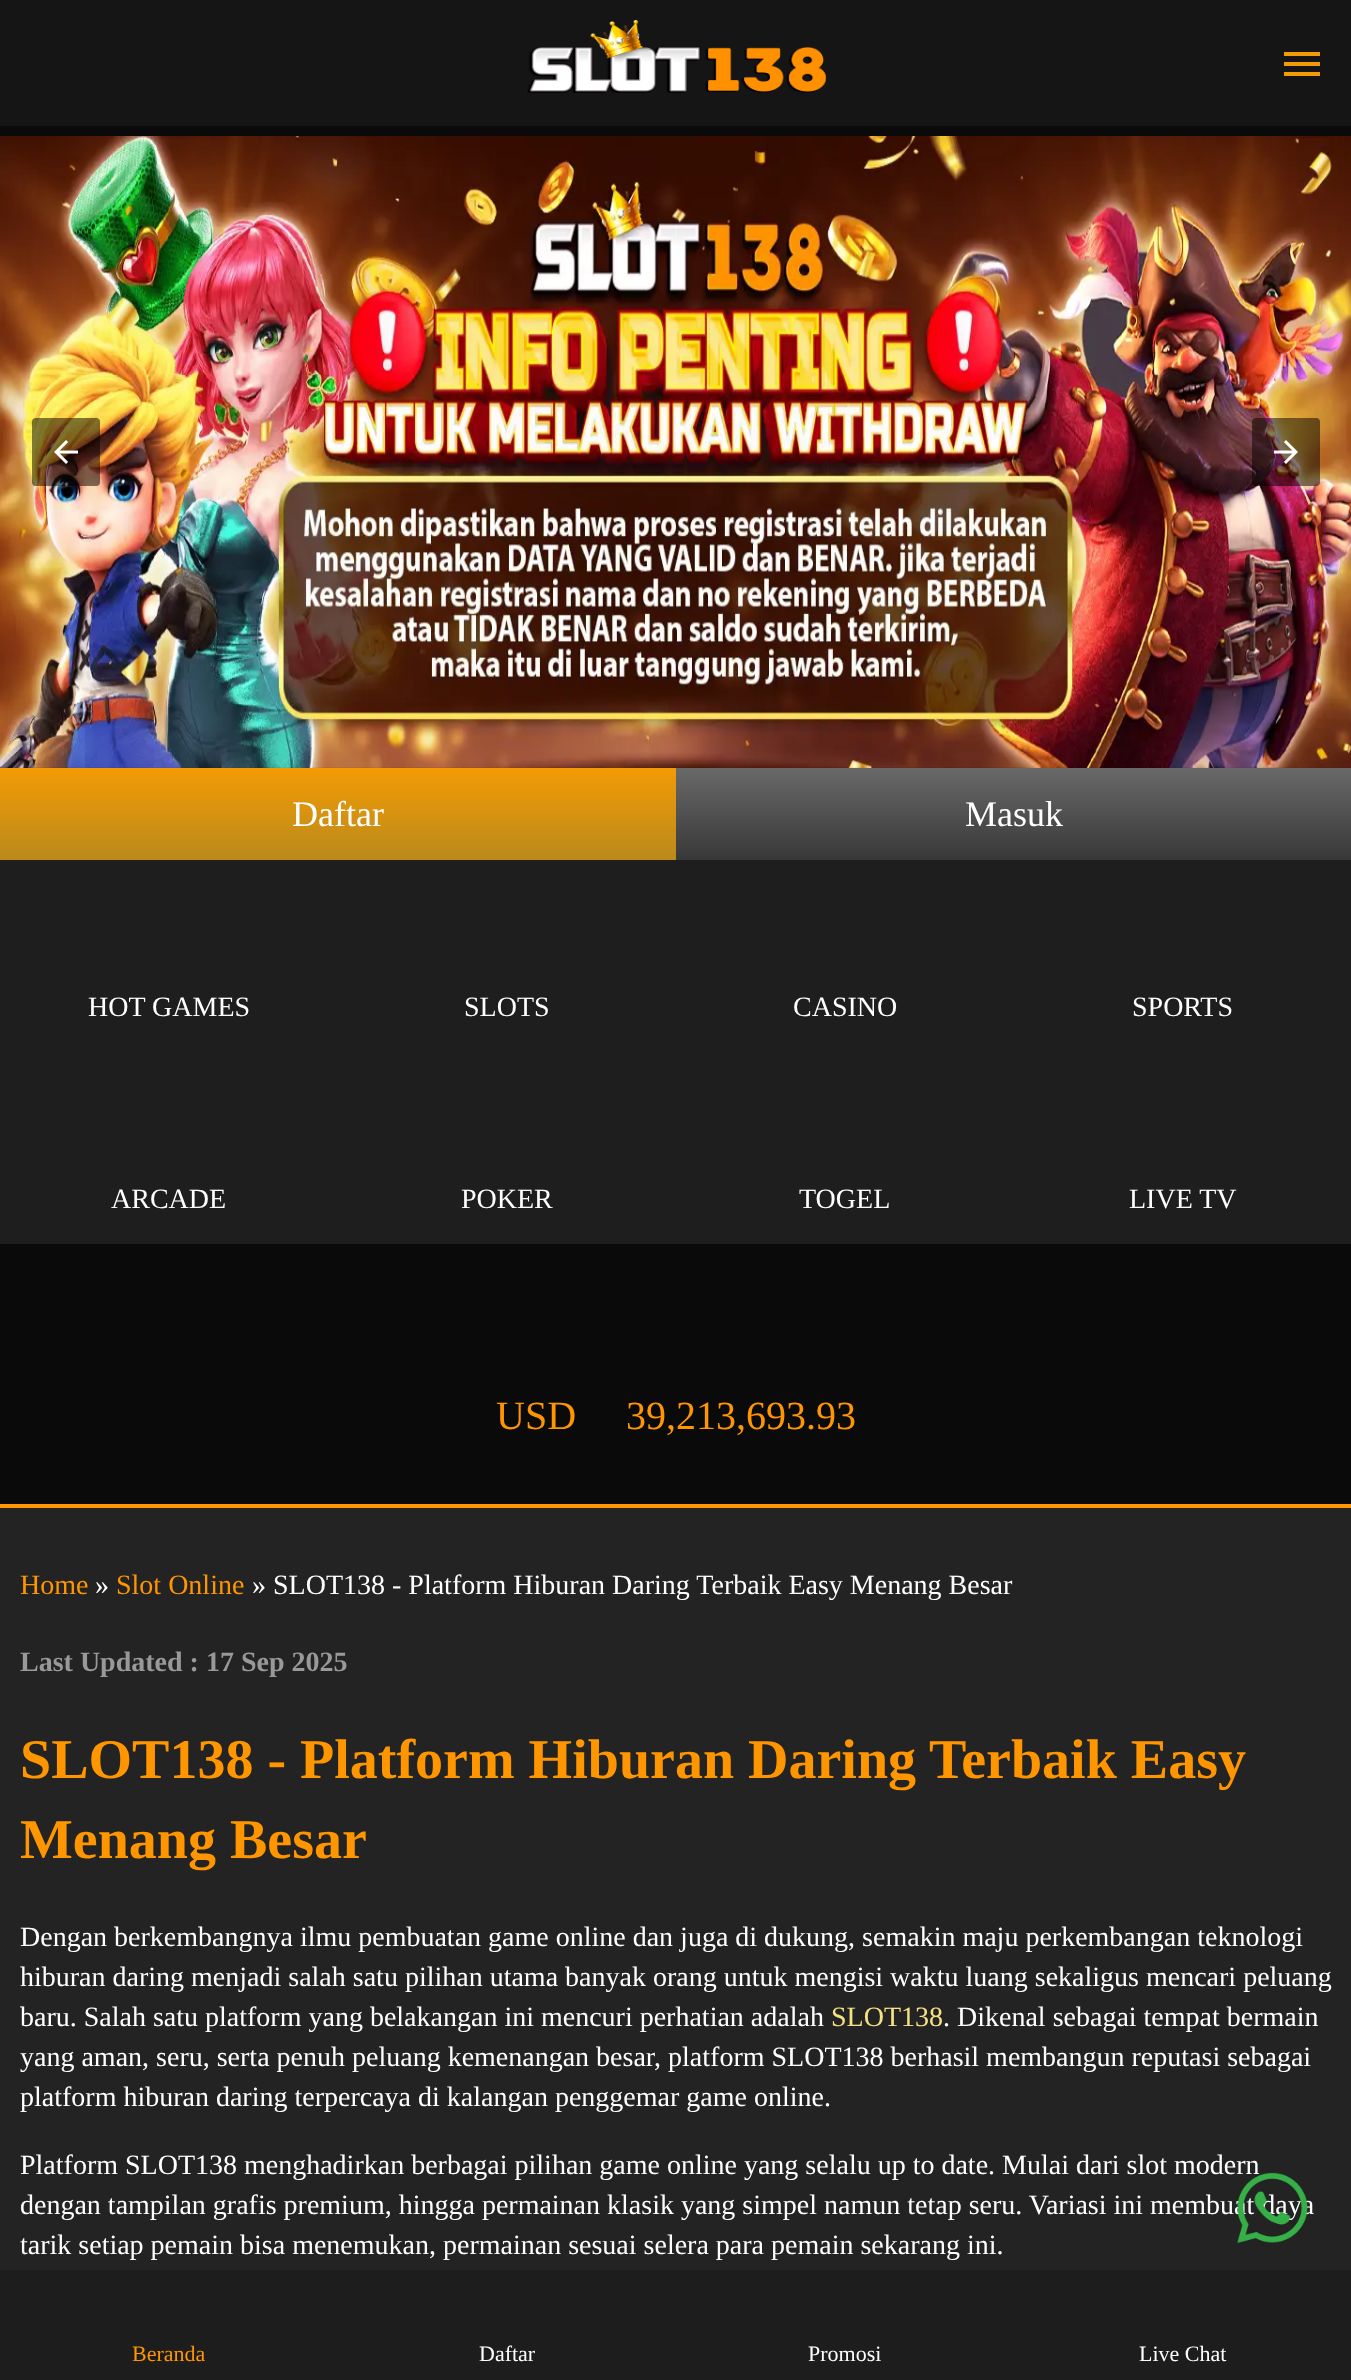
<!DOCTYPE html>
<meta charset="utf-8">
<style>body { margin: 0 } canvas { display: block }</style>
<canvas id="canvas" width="1351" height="2380"></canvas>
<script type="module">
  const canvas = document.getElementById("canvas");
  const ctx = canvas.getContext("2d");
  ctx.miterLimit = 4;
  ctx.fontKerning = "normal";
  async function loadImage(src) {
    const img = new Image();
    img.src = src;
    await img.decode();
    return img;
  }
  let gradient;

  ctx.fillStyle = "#0a0a0a";
  ctx.fillRect(0, 0, 1351, 2380);
  ctx.fillStyle = "#151515";
  ctx.fillRect(0, 0, 1351, 126);
  ctx.drawImage(await loadImage("img1.png"), 527, 20, 299, 73);
  ctx.fillStyle = "#f39b05";
  ctx.fillRect(1284, 62, 36, 4);
  ctx.fillRect(1284, 52, 36, 4);
  ctx.fillRect(1284, 72, 36, 4);
  ctx.drawImage(await loadImage("img2.png"), 0, 136, 1351, 632);
  ctx.fillStyle = "rgba(0, 0, 0, 0.5)";
  ctx.beginPath();
  ctx.roundRect(32, 418, 68, 68, 4);
  ctx.fill();
  ctx.drawImage(await loadImage("img3.png"), 54, 440, 24, 24);
  ctx.beginPath();
  ctx.roundRect(1252, 418, 68, 68, 4);
  ctx.fill();
  ctx.drawImage(await loadImage("img4.png"), 1274, 440, 24, 24);
  gradient = ctx.createLinearGradient(338, 768, 338, 860);
  gradient.addColorStop(0, "#f39b05");
  gradient.addColorStop(1, "#ba8a1c");
  ctx.fillStyle = gradient;
  ctx.fillRect(0, 768, 676, 92);
  ctx.font = "36px Liberation Serif";
  ctx.fillStyle = "#ffffff";
  ctx.fillText("Daftar", 292, 826);
  gradient = ctx.createLinearGradient(1014, 768, 1014, 860);
  gradient.addColorStop(0, "#696969");
  gradient.addColorStop(1, "#383838");
  ctx.fillStyle = gradient;
  ctx.fillRect(676, 768, 675, 92);
  ctx.fillStyle = "#ffffff";
  ctx.fillText("Masuk", 965, 826);
  ctx.fillStyle = "#1e1e1e";
  ctx.fillRect(0, 860, 1351, 384);
  ctx.font = "28px Liberation Serif";
  ctx.fillStyle = "#ffffff";
  ctx.fillText("HOT GAMES", 88, 1016);
  ctx.fillText("SLOTS", 464, 1016);
  ctx.fillText("CASINO", 793, 1016);
  ctx.fillText("SPORTS", 1132, 1016);
  ctx.fillText("ARCADE", 111, 1208);
  ctx.fillText("POKER", 461, 1208);
  ctx.fillText("TOGEL", 799, 1208);
  ctx.fillText("LIVE TV", 1129, 1208);
  ctx.font = "40px Liberation Serif";
  ctx.fillStyle = "#ff9600";
  ctx.fillText("USD", 496, 1429);
  ctx.fillText("39,213,693.93", 626, 1429);
  ctx.fillRect(0, 1504, 1351, 4);
  ctx.fillStyle = "#232323";
  ctx.fillRect(0, 1508, 1351, 762);
  ctx.font = "28px Liberation Serif";
  ctx.fillStyle = "#ff9600";
  ctx.fillText("Home", 20, 1594);
  ctx.fillStyle = "#ffffff";
  ctx.fillText("»", 95, 1594);
  ctx.fillStyle = "#ff9600";
  ctx.fillText("Slot Online", 116, 1594);
  ctx.fillStyle = "#ffffff";
  ctx.fillText("» SLOT138 - Platform Hiburan Daring Terbaik Easy Menang Besar", 252, 1594);
  ctx.font = "bold 28px Liberation Serif";
  ctx.fillStyle = "#999999";
  ctx.fillText("Last Updated : 17 Sep 2025", 20, 1671);
  ctx.font = "bold 56px Liberation Serif";
  ctx.fillStyle = "#ff9600";
  ctx.fillText("SLOT138 - Platform Hiburan Daring Terbaik Easy", 20, 1778);
  ctx.fillText("Menang Besar", 20, 1858);
  ctx.font = "28px Liberation Serif";
  ctx.fillStyle = "#ffffff";
  ctx.fillText("Dengan berkembangnya ilmu pembuatan game online dan juga di dukung, semakin maju perkembangan teknologi", 20, 1946);
  ctx.fillText("hiburan daring menjadi salah satu pilihan utama banyak orang untuk mengisi waktu luang sekaligus mencari peluang", 20, 1986);
  ctx.fillText("baru. Salah satu platform yang belakangan ini mencuri perhatian adalah", 20, 2026);
  ctx.fillStyle = "#f6e284";
  ctx.fillText("SLOT138", 831, 2026);
  ctx.fillStyle = "#ffffff";
  ctx.fillText(". Dikenal sebagai tempat bermain", 943, 2026);
  ctx.fillText("yang aman, seru, serta penuh peluang kemenangan besar, platform SLOT138 berhasil membangun reputasi sebagai", 20, 2066);
  ctx.fillText("platform hiburan daring terpercaya di kalangan penggemar game online.", 20, 2106);
  ctx.fillText("Platform SLOT138 menghadirkan berbagai pilihan game online yang selalu up to date. Mulai dari slot modern", 20, 2174);
  ctx.fillText("dengan tampilan grafis premium, hingga permainan klasik yang simpel namun tetap seru. Variasi ini membuat daya", 20, 2214);
  ctx.fillText("tarik setiap pemain bisa menemukan, permainan sesuai selera para pemain sekarang ini.", 20, 2254);
  ctx.drawImage(await loadImage("img5.png"), 1237, 2172, 71, 72);
  ctx.fillStyle = "#1d1d1d";
  ctx.fillRect(0, 2270, 1351, 110);
  ctx.font = "22px Liberation Serif";
  ctx.fillStyle = "#ff9600";
  ctx.fillText("Beranda", 132, 2361);
  ctx.fillStyle = "#ffffff";
  ctx.fillText("Daftar", 479, 2361);
  ctx.fillText("Promosi", 808, 2361);
  ctx.fillText("Live Chat", 1139, 2361);
</script>
